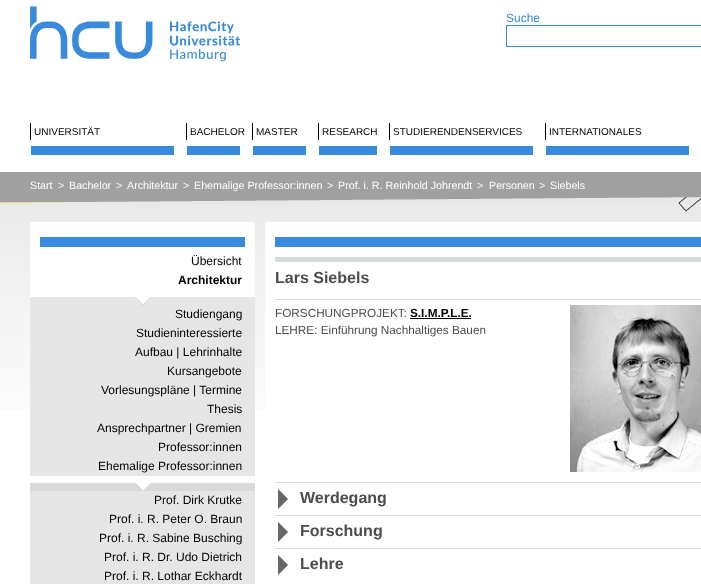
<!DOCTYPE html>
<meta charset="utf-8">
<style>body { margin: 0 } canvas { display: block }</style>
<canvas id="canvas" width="701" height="584"></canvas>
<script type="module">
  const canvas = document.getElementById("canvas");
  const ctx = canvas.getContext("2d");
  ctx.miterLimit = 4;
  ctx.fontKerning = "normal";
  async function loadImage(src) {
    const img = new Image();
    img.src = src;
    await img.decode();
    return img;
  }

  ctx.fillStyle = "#ffffff";
  ctx.fillRect(0, 0, 701, 584);
  ctx.drawImage(await loadImage("img1.png"), 30, 6, 211, 56);
  ctx.font = "12px Liberation Sans";
  ctx.fillStyle = "#388adc";
  ctx.fillText("Suche", 506, 22);
  ctx.strokeStyle = "#388adc";
  ctx.strokeRect(506.5, 25.5, 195, 21);
  ctx.fillRect(31, 146, 143, 9);
  ctx.fillStyle = "#000000";
  ctx.fillRect(30, 123, 1, 17);
  ctx.font = "10px Liberation Sans";
  ctx.fillText("UNIVERSITÄT", 34, 135);
  ctx.fillStyle = "#388adc";
  ctx.fillRect(187, 146, 53, 9);
  ctx.fillStyle = "#000000";
  ctx.fillRect(186, 123, 1, 17);
  ctx.fillText("BACHELOR", 190, 135);
  ctx.fillStyle = "#388adc";
  ctx.fillRect(253, 146, 53, 9);
  ctx.fillStyle = "#000000";
  ctx.fillRect(252, 123, 1, 17);
  ctx.fillText("MASTER", 256, 135);
  ctx.fillStyle = "#388adc";
  ctx.fillRect(319, 146, 58, 9);
  ctx.fillStyle = "#000000";
  ctx.fillRect(318, 123, 1, 17);
  ctx.fillText("RESEARCH", 322, 135);
  ctx.fillStyle = "#388adc";
  ctx.fillRect(390, 146, 143, 9);
  ctx.fillStyle = "#000000";
  ctx.fillRect(389, 123, 1, 17);
  ctx.fillText("STUDIERENDENSERVICES", 393, 135);
  ctx.fillStyle = "#388adc";
  ctx.fillRect(546, 146, 143, 9);
  ctx.fillStyle = "#000000";
  ctx.fillRect(545, 123, 1, 17);
  ctx.fillText("INTERNATIONALES", 549, 135);
  ctx.drawImage(await loadImage("img2.png"), 0, 172, 701, 30);
  ctx.font = "10.7px Liberation Sans";
  ctx.fillStyle = "#ffffff";
  ctx.fillText("Start", 30, 189);
  ctx.fillText(">", 58, 189);
  ctx.fillText("Bachelor", 69, 189);
  ctx.fillText(">", 116, 189);
  ctx.fillText("Architektur", 127, 189);
  ctx.fillText(">", 183, 189);
  ctx.fillText("Ehemalige Professor:innen", 194, 189);
  ctx.fillText(">", 327, 189);
  ctx.fillText("Prof. i. R. Reinhold Johrendt", 338, 189);
  ctx.fillText(">", 477, 189);
  ctx.fillText("Personen", 489, 189);
  ctx.fillText(">", 539, 189);
  ctx.fillText("Siebels", 550, 189);
  ctx.drawImage(await loadImage("img3.png"), 0, 202, 701, 207);
  ctx.fillRect(30, 222, 225, 68);
  ctx.fillStyle = "#388adc";
  ctx.fillRect(40, 237, 205, 10);
  ctx.font = "12px Liberation Sans";
  ctx.fillStyle = "#000000";
  ctx.fillText("Übersicht", 191, 265);
  ctx.font = "bold 12px Liberation Sans";
  ctx.fillText("Architektur", 178, 284);
  ctx.fillStyle = "#e6e6e6";
  ctx.fillRect(30, 305, 225, 279);
  ctx.drawImage(await loadImage("img4.png"), 30, 290, 225, 15);
  ctx.font = "12px Liberation Sans";
  ctx.fillStyle = "#000000";
  ctx.fillText("Studiengang", 175, 318);
  ctx.fillText("Studieninteressierte", 136, 337);
  ctx.fillText("Aufbau | Lehrinhalte", 135, 356);
  ctx.fillText("Kursangebote", 167, 375);
  ctx.fillText("Vorlesungspläne | Termine", 101, 394);
  ctx.fillText("Thesis", 207, 413);
  ctx.fillText("Ansprechpartner | Gremien", 97, 432);
  ctx.fillText("Professor:innen", 158, 451);
  ctx.fillText("Ehemalige Professor:innen", 98, 470);
  ctx.drawImage(await loadImage("img5.png"), 30, 476, 225, 15);
  ctx.fillText("Prof. Dirk Krutke", 154, 504);
  ctx.fillText("Prof. i. R. Peter O. Braun", 109, 523);
  ctx.fillText("Prof. i. R. Sabine Busching", 99, 542);
  ctx.fillText("Prof. i. R. Dr. Udo Dietrich", 104, 561);
  ctx.fillText("Prof. i. R. Lothar Eckhardt", 104, 580);
  ctx.fillStyle = "#ffffff";
  ctx.fillRect(265, 222, 436, 187);
  ctx.fillStyle = "#388adc";
  ctx.fillRect(275, 237, 426, 10);
  ctx.fillStyle = "#d6dadb";
  ctx.fillRect(275, 257, 426, 5);
  ctx.fillRect(275, 299, 426, 1);
  ctx.font = "bold 16px Liberation Sans";
  ctx.fillStyle = "#4c4c4c";
  ctx.fillText("Lars Siebels", 275, 283);
  ctx.font = "11.75px Liberation Sans";
  ctx.fillText("FORSCHUNGPROJEKT:", 275, 317);
  ctx.font = "bold 11.75px Liberation Sans";
  ctx.fillStyle = "#000000";
  ctx.fillText("S.I.M.P.L.E.", 410, 317);
  ctx.fillRect(410, 318, 61, 1);
  ctx.font = "11.75px Liberation Sans";
  ctx.fillStyle = "#4c4c4c";
  ctx.fillText("LEHRE: Einführung Nachhaltiges Bauen", 275, 334);
  ctx.drawImage(await loadImage("img6.png"), 570, 305, 131, 167);
  ctx.fillStyle = "#d6dadb";
  ctx.fillRect(275, 482, 426, 1);
  ctx.drawImage(await loadImage("img7.png"), 278, 489, 10, 20);
  ctx.font = "bold 16px Liberation Sans";
  ctx.fillStyle = "#4c4c4c";
  ctx.fillText("Werdegang", 300, 503);
  ctx.fillStyle = "#d6dadb";
  ctx.fillRect(275, 515, 426, 1);
  ctx.drawImage(await loadImage("img7.png"), 278, 522, 10, 20);
  ctx.fillStyle = "#4c4c4c";
  ctx.fillText("Forschung", 300, 536);
  ctx.fillStyle = "#d6dadb";
  ctx.fillRect(275, 548, 426, 1);
  ctx.drawImage(await loadImage("img7.png"), 278, 555, 10, 20);
  ctx.fillStyle = "#4c4c4c";
  ctx.fillText("Lehre", 300, 569);
</script>
